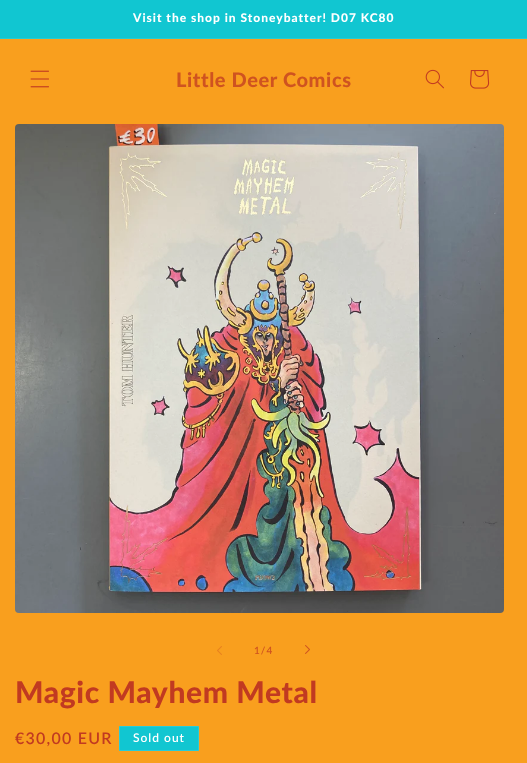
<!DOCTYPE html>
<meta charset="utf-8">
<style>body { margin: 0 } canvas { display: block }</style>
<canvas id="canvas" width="527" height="763"></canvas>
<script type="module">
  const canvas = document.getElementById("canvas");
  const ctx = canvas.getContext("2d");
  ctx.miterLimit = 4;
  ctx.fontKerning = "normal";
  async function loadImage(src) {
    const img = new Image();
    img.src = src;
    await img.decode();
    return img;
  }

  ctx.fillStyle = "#f99f1e";
  ctx.fillRect(0, 0, 527, 763);
  ctx.fillStyle = "#11c6d1";
  ctx.fillRect(0, 0, 527, 38);
  ctx.fillStyle = "#24cbd5";
  ctx.fillRect(0, 38, 527, 1);
  ctx.letterSpacing = "1px";
  ctx.font = "900 12px Lato";
  ctx.fillStyle = "#ffffff";
  ctx.fillText("Visit the shop in Stoneybatter! D07 KC80", 133, 22);
  ctx.drawImage(await loadImage("img1.png"), 30, 70, 19, 18);
  ctx.letterSpacing = "0.6px";
  ctx.font = "900 20px Lato";
  ctx.fillStyle = "#cf5320";
  ctx.fillText("Little Deer Comics", 176, 87);
  ctx.drawImage(await loadImage("img2.png"), 425, 69, 19, 20);
  ctx.drawImage(await loadImage("img3.png"), 470, 70, 20, 19);
  ctx.drawImage(await loadImage("img4.png"), 15, 124, 489, 489);
  ctx.drawImage(await loadImage("img5.png"), 217, 646, 5, 9);
  ctx.letterSpacing = "1px";
  ctx.font = "600 10px Lato";
  ctx.fillText("1/4", 254, 654);
  ctx.drawImage(await loadImage("img6.png"), 305, 645, 5, 9);
  ctx.letterSpacing = "0.6px";
  ctx.font = "900 30px Lato";
  ctx.fillStyle = "#c13a21";
  ctx.fillText("Magic Mayhem Metal", 15, 703);
  ctx.letterSpacing = "1.25px";
  ctx.font = "600 16px Lato";
  ctx.fillText("€30,00 EUR", 15, 744);
  ctx.fillStyle = "#11c6d1";
  ctx.beginPath();
  ctx.rect(119.5, 726.5, 79, 24);
  ctx.fill();
  ctx.strokeStyle = "#29ccd6";
  ctx.stroke();
  ctx.letterSpacing = "1px";
  ctx.font = "600 12px Lato";
  ctx.fillStyle = "#ffffff";
  ctx.fillText("Sold out", 133, 742);
</script>
